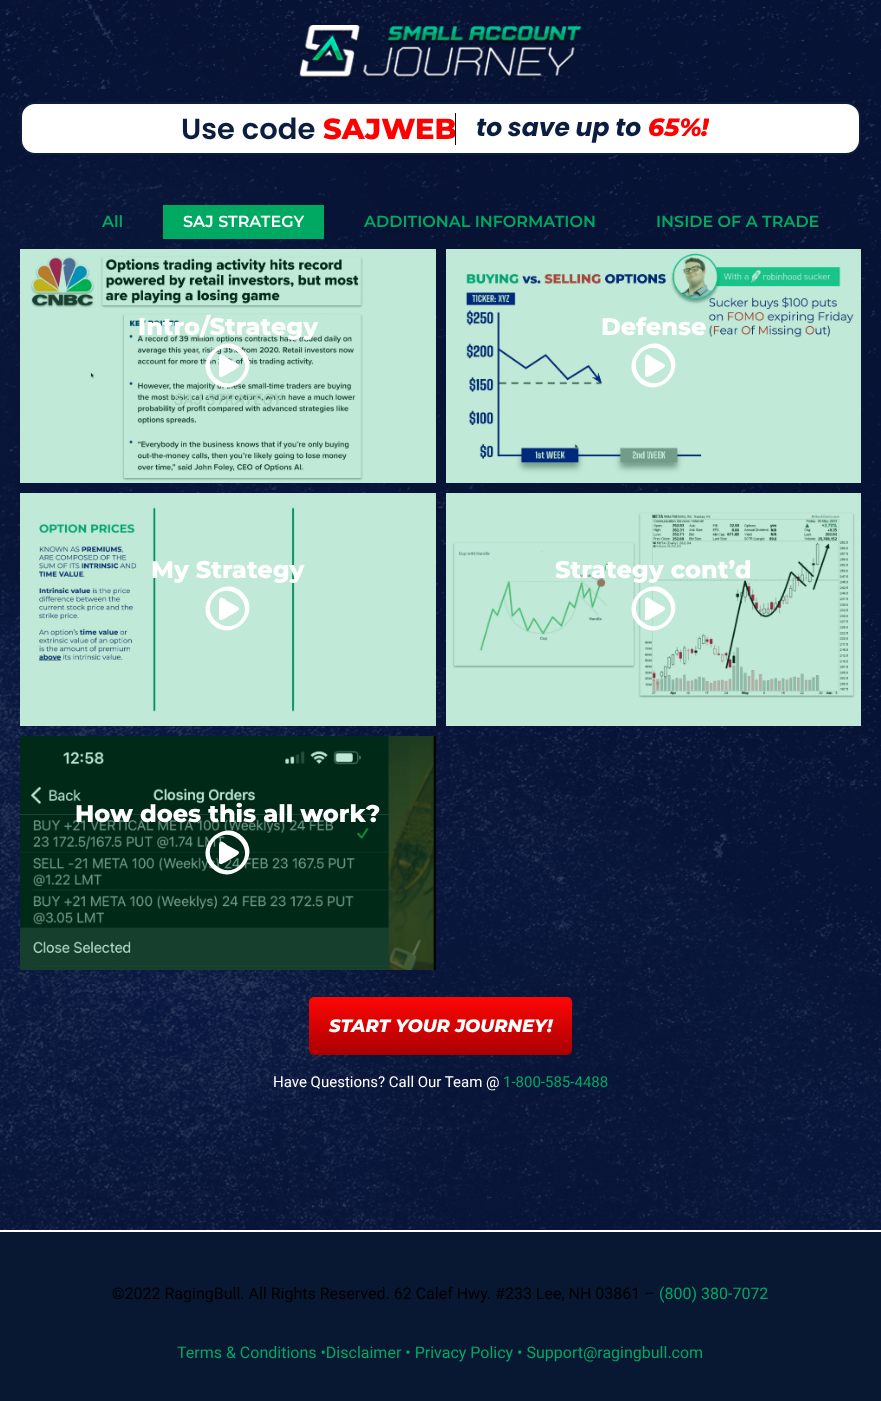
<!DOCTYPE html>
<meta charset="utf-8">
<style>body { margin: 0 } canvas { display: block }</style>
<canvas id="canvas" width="881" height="1401"></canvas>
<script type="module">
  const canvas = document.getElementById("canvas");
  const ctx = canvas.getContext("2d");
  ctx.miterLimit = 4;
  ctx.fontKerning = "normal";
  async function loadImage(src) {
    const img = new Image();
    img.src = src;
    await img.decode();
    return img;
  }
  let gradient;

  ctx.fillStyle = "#ffffff";
  ctx.fillRect(0, 0, 881, 1401);
  ctx.drawImage(await loadImage("img1.png"), 0, 0, 881, 1230);
  ctx.drawImage(await loadImage("img2.png"), 299, 25, 283, 55);
  ctx.beginPath();
  ctx.roundRect(21, 103, 839, 51, 14);
  ctx.fill();
  ctx.strokeStyle = "#0b1e41";
  ctx.lineWidth = 2;
  ctx.stroke();
  ctx.font = "600 29px Poppins";
  ctx.fillStyle = "#0b1e41";
  ctx.fillText("Use code", 181, 139);
  ctx.font = "800 29px Montserrat";
  ctx.fillStyle = "#ff0000";
  ctx.fillText("EB", 415, 139);
  ctx.fillStyle = "#0d0d0d";
  ctx.fillRect(455, 113, 1, 32);
  ctx.fillStyle = "#ff0000";
  ctx.fillText("SA", 323, 139);
  ctx.fillText("JW", 365, 139);
  ctx.font = "italic bold 25px Poppins";
  ctx.fillStyle = "#0b1e41";
  ctx.fillText("to save up to", 476, 136);
  ctx.font = "italic 800 25px Montserrat";
  ctx.fillStyle = "#ff0000";
  ctx.fillText("65%", 648, 136);
  ctx.save();
  ctx.beginPath();
  ctx.rect(648, 112, 61, 31);
  ctx.clip();
  ctx.fillText("!", 701, 136);
  ctx.restore();
  ctx.font = "600 16px Montserrat";
  ctx.fillStyle = "#00a962";
  ctx.fillText("All", 102, 227);
  ctx.fillRect(163, 205, 161, 34);
  ctx.fillStyle = "#ffffff";
  ctx.fillText("SAJ STRATEGY", 183, 227);
  ctx.fillStyle = "#00a962";
  ctx.fillText("ADDITIONAL INFORMATION", 364, 227);
  ctx.fillText("INSIDE OF A TRADE", 656, 227);
  ctx.drawImage(await loadImage("img3.png"), 20, 249, 416, 234);
  ctx.font = "800 24px Montserrat";
  ctx.fillStyle = "#ffffff";
  ctx.fillText("Intro/Strategy", 138, 335);
  ctx.beginPath();
  ctx.moveTo(238, 364);
  ctx.bezierCurveTo(242, 367, 233, 370, 233, 371);
  ctx.bezierCurveTo(230, 372, 222, 378, 220, 377);
  ctx.lineTo(219, 376);
  ctx.lineTo(219, 360);
  ctx.bezierCurveTo(219, 352, 222, 354, 227, 358);
  ctx.closePath();
  ctx.moveTo(243, 350);
  ctx.bezierCurveTo(263, 370, 232, 401, 212, 381);
  ctx.bezierCurveTo(192, 361, 223, 330, 243, 350);
  ctx.closePath();
  ctx.moveTo(215, 353);
  ctx.bezierCurveTo(199, 370, 224, 394, 240, 378);
  ctx.bezierCurveTo(256, 362, 231, 337, 215, 353);
  ctx.closePath();
  ctx.fill();
  ctx.font = "italic 500 16px Roboto";
  ctx.fillStyle = "#aad3c2";
  ctx.fillText("SAJ STRATEGY", 174, 405);
  ctx.drawImage(await loadImage("img4.png"), 446, 249, 415, 234);
  ctx.font = "800 24px Montserrat";
  ctx.fillStyle = "#ffffff";
  ctx.fillText("Defense", 601, 335);
  ctx.beginPath();
  ctx.moveTo(664, 364);
  ctx.bezierCurveTo(668, 367, 659, 370, 659, 371);
  ctx.bezierCurveTo(656, 372, 648, 378, 646, 377);
  ctx.lineTo(645, 376);
  ctx.lineTo(645, 360);
  ctx.bezierCurveTo(645, 352, 648, 354, 653, 358);
  ctx.closePath();
  ctx.moveTo(669, 350);
  ctx.bezierCurveTo(689, 370, 658, 401, 638, 381);
  ctx.bezierCurveTo(618, 361, 649, 330, 669, 350);
  ctx.closePath();
  ctx.moveTo(641, 353);
  ctx.bezierCurveTo(625, 370, 650, 394, 666, 378);
  ctx.bezierCurveTo(682, 362, 657, 337, 641, 353);
  ctx.closePath();
  ctx.fill();
  ctx.drawImage(await loadImage("img5.png"), 20, 493, 416, 233);
  ctx.fillText("My Strategy", 151, 578);
  ctx.beginPath();
  ctx.moveTo(238, 607);
  ctx.bezierCurveTo(242, 610, 233, 613, 233, 614);
  ctx.bezierCurveTo(230, 615, 222, 621, 220, 620);
  ctx.lineTo(219, 619);
  ctx.lineTo(219, 603);
  ctx.bezierCurveTo(219, 595, 222, 597, 227, 601);
  ctx.closePath();
  ctx.moveTo(243, 593);
  ctx.bezierCurveTo(263, 613, 232, 644, 212, 624);
  ctx.bezierCurveTo(192, 604, 223, 573, 243, 593);
  ctx.closePath();
  ctx.moveTo(215, 596);
  ctx.bezierCurveTo(199, 613, 224, 637, 240, 621);
  ctx.bezierCurveTo(256, 605, 231, 580, 215, 596);
  ctx.closePath();
  ctx.fill();
  ctx.drawImage(await loadImage("img6.png"), 446, 493, 415, 233);
  ctx.fillText("Strategy cont’d", 555, 578);
  ctx.beginPath();
  ctx.moveTo(664, 607);
  ctx.bezierCurveTo(668, 610, 659, 613, 659, 614);
  ctx.bezierCurveTo(656, 615, 648, 621, 646, 620);
  ctx.lineTo(645, 619);
  ctx.lineTo(645, 603);
  ctx.bezierCurveTo(645, 595, 648, 597, 653, 601);
  ctx.closePath();
  ctx.moveTo(669, 593);
  ctx.bezierCurveTo(689, 613, 658, 644, 638, 624);
  ctx.bezierCurveTo(618, 604, 649, 573, 669, 593);
  ctx.closePath();
  ctx.moveTo(641, 596);
  ctx.bezierCurveTo(625, 613, 650, 637, 666, 621);
  ctx.bezierCurveTo(682, 605, 657, 580, 641, 596);
  ctx.closePath();
  ctx.fill();
  ctx.fillStyle = "#000000";
  ctx.fillRect(434, 736, 2, 234);
  ctx.drawImage(await loadImage("img7.png"), 20, 736, 414, 234);
  ctx.fillStyle = "#ffffff";
  ctx.fillText("How does this all work?", 75, 822);
  ctx.beginPath();
  ctx.moveTo(238, 851);
  ctx.bezierCurveTo(242, 854, 233, 857, 233, 858);
  ctx.bezierCurveTo(230, 859, 222, 865, 220, 864);
  ctx.lineTo(219, 863);
  ctx.lineTo(219, 847);
  ctx.bezierCurveTo(219, 839, 222, 841, 227, 845);
  ctx.closePath();
  ctx.moveTo(243, 837);
  ctx.bezierCurveTo(263, 857, 232, 888, 212, 868);
  ctx.bezierCurveTo(192, 848, 223, 817, 243, 837);
  ctx.closePath();
  ctx.moveTo(215, 840);
  ctx.bezierCurveTo(199, 857, 224, 881, 240, 865);
  ctx.bezierCurveTo(256, 849, 231, 824, 215, 840);
  ctx.closePath();
  ctx.fill();
  gradient = ctx.createLinearGradient(441, 997, 441, 1055);
  gradient.addColorStop(0, "#ff0606");
  gradient.addColorStop(1, "#a90000");
  ctx.fillStyle = gradient;
  ctx.beginPath();
  ctx.roundRect(309, 997, 263, 58, 5);
  ctx.fill();
  ctx.font = "italic 800 18px Montserrat";
  ctx.fillStyle = "#ffffff";
  ctx.fillText("START YOUR JOURNEY!", 329, 1032);
  ctx.font = "15px Roboto";
  ctx.fillText("Have Questions? Call Our Team @", 273, 1087);
  ctx.fillStyle = "#00a962";
  ctx.fillText("1-800-585-4488", 503, 1087);
  ctx.fillStyle = "#081732";
  ctx.fillRect(0, 1232, 881, 169);
  ctx.font = "16px Roboto";
  ctx.fillStyle = "#000000";
  ctx.fillText("©2022 RagingBull. All Rights Reserved. 62 Calef Hwy. #233 Lee, NH 03861 –", 112, 1299);
  ctx.fillStyle = "#00a962";
  ctx.fillText("(800) 380-7072", 659, 1299);
  ctx.fillText("Terms & Conditions •Disclaimer • Privacy Policy • Support@ragingbull.com", 177, 1358);
</script>
